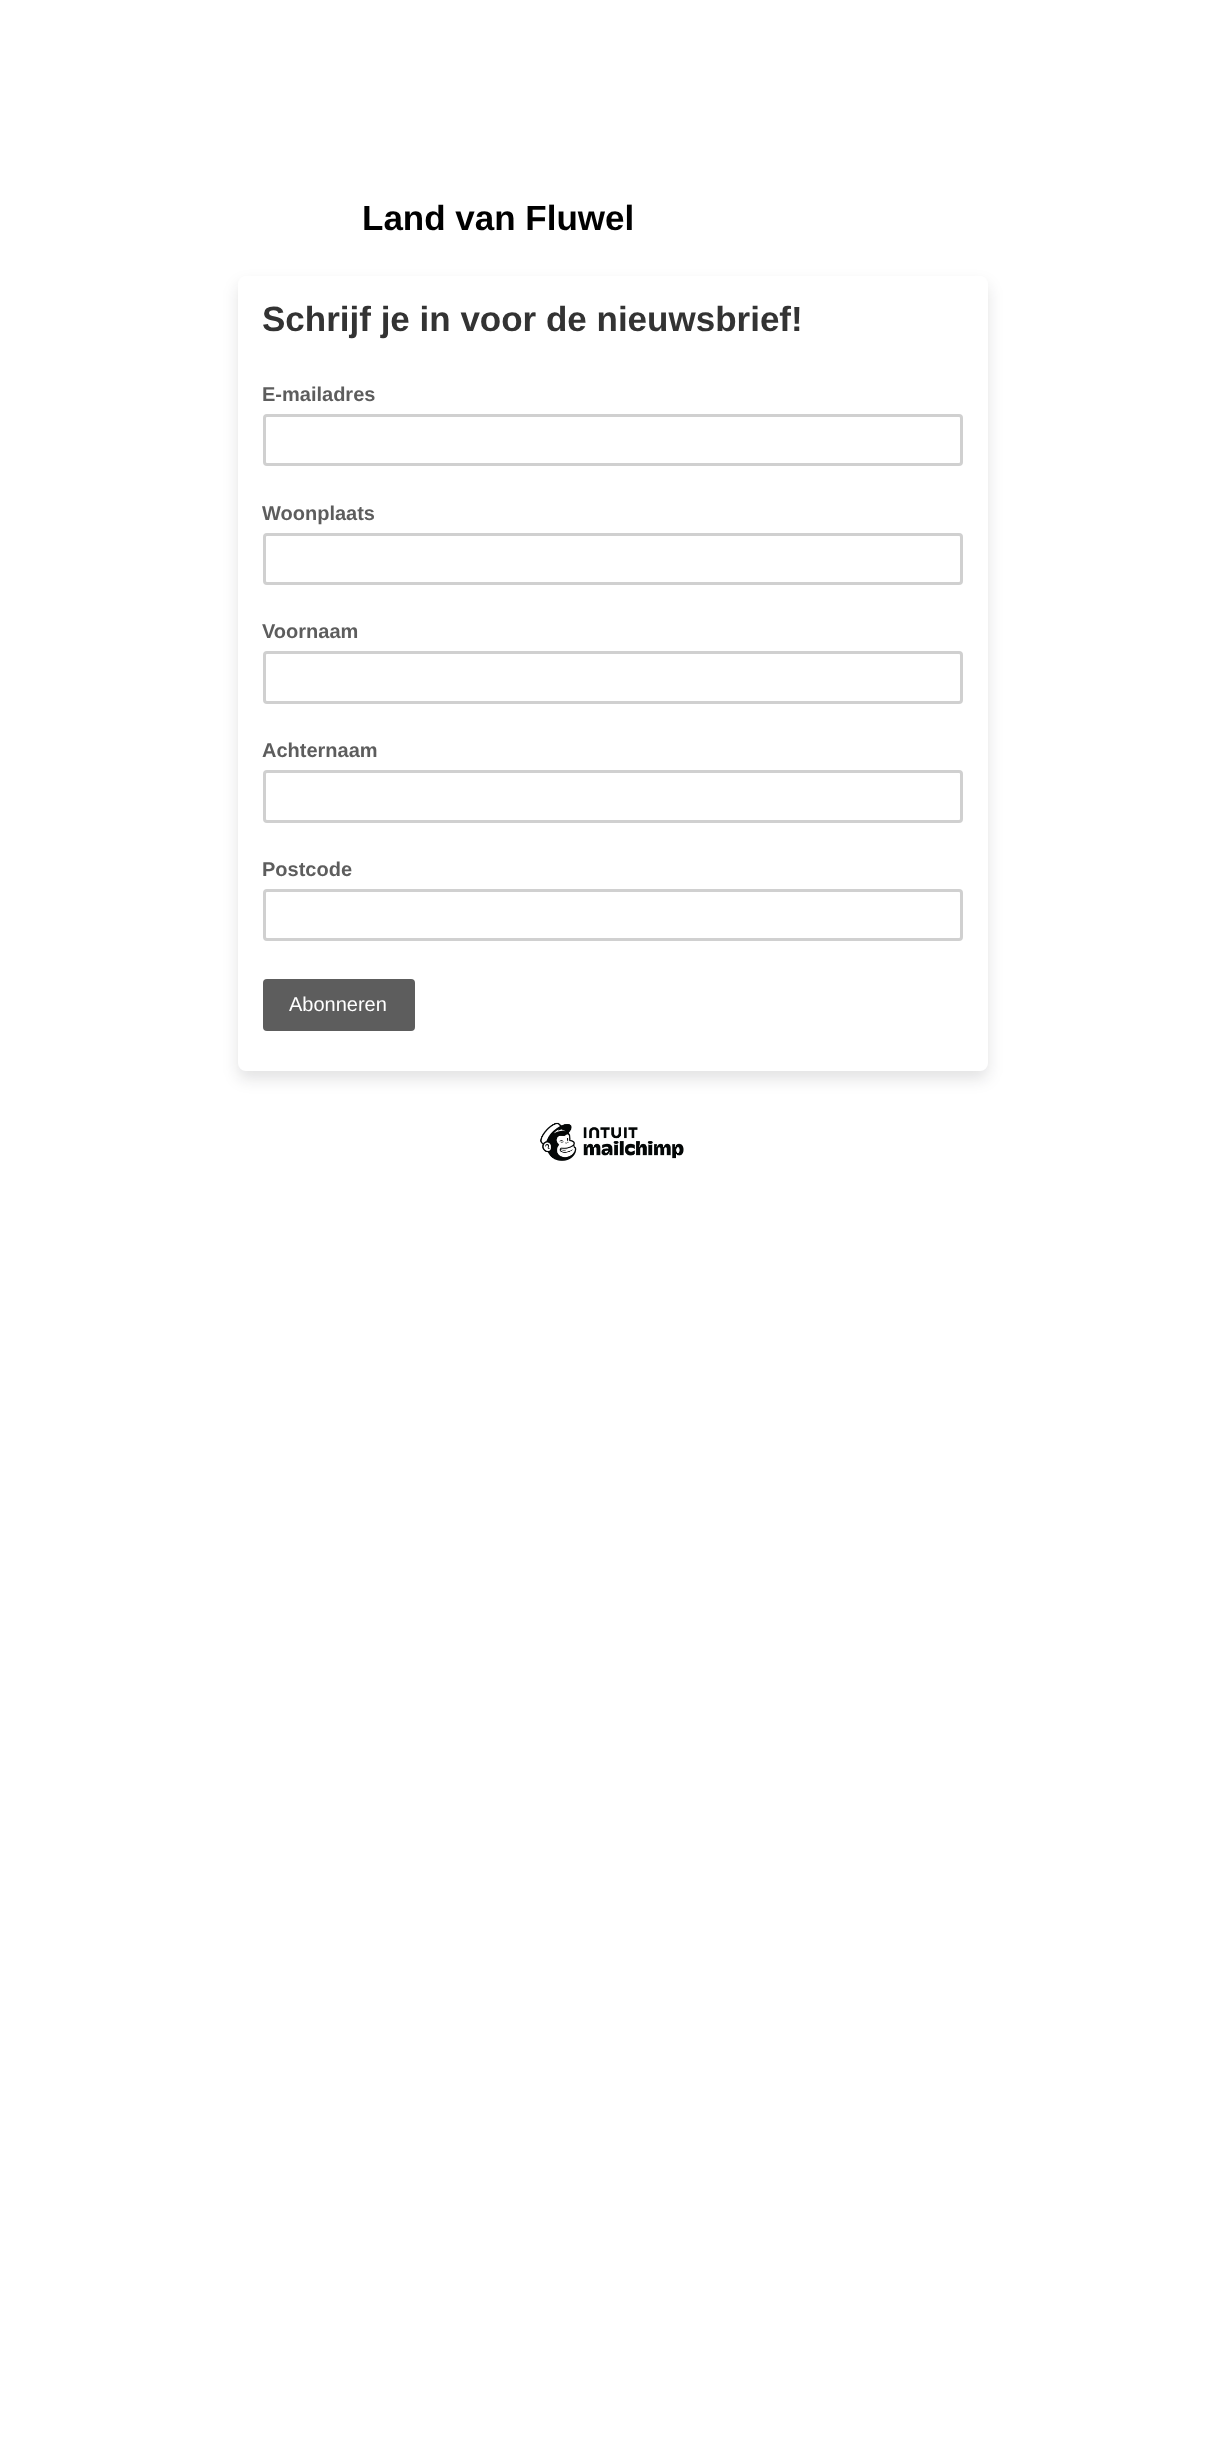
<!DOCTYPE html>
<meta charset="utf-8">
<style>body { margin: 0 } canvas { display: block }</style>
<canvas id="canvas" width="1223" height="2438"></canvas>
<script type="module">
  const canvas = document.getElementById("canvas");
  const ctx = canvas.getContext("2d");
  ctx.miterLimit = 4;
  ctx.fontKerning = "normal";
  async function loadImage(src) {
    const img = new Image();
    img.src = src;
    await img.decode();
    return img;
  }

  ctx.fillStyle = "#ffffff";
  ctx.fillRect(0, 0, 1223, 2438);
  ctx.font = "bold 35px Liberation Sans";
  ctx.fillStyle = "#000000";
  ctx.fillText("Land van Fluwel", 362, 230);
  ctx.fillStyle = "rgba(13, 18, 22, 0.12)";
  ctx.filter = "blur(7.5px)";
  ctx.beginPath();
  ctx.roundRect(238, 284, 750, 795, 8);
  ctx.fill();
  ctx.filter = "none";
  ctx.fillStyle = "#ffffff";
  ctx.beginPath();
  ctx.roundRect(238, 276, 750, 795, 8);
  ctx.fill();
  ctx.fillStyle = "#333333";
  ctx.fillText("Schrijf je in voor de nieuwsbrief!", 262, 331);
  ctx.font = "bold 20px Liberation Sans";
  ctx.fillStyle = "#5d5d5d";
  ctx.fillText("E-mailadres", 262, 401);
  ctx.beginPath();
  ctx.roundRect(264.5, 415.5, 697, 49, 2.5);
  ctx.strokeStyle = "#d0d0d0";
  ctx.lineWidth = 3;
  ctx.stroke();
  ctx.fillText("Woonplaats", 262, 520);
  ctx.beginPath();
  ctx.roundRect(264.5, 534.5, 697, 49, 2.5);
  ctx.stroke();
  ctx.fillText("Voornaam", 262, 638);
  ctx.beginPath();
  ctx.roundRect(264.5, 652.5, 697, 50, 2.5);
  ctx.stroke();
  ctx.fillText("Achternaam", 262, 757);
  ctx.beginPath();
  ctx.roundRect(264.5, 771.5, 697, 50, 2.5);
  ctx.stroke();
  ctx.fillText("Postcode", 262, 876);
  ctx.beginPath();
  ctx.roundRect(264.5, 890.5, 697, 49, 2.5);
  ctx.stroke();
  ctx.beginPath();
  ctx.roundRect(263, 979, 152, 52, 4);
  ctx.fill();
  ctx.font = "20px Liberation Sans";
  ctx.fillStyle = "#ffffff";
  ctx.fillText("Abonneren", 289, 1011);
  ctx.drawImage(await loadImage("img1.png"), 540, 1122, 144, 39);
</script>
